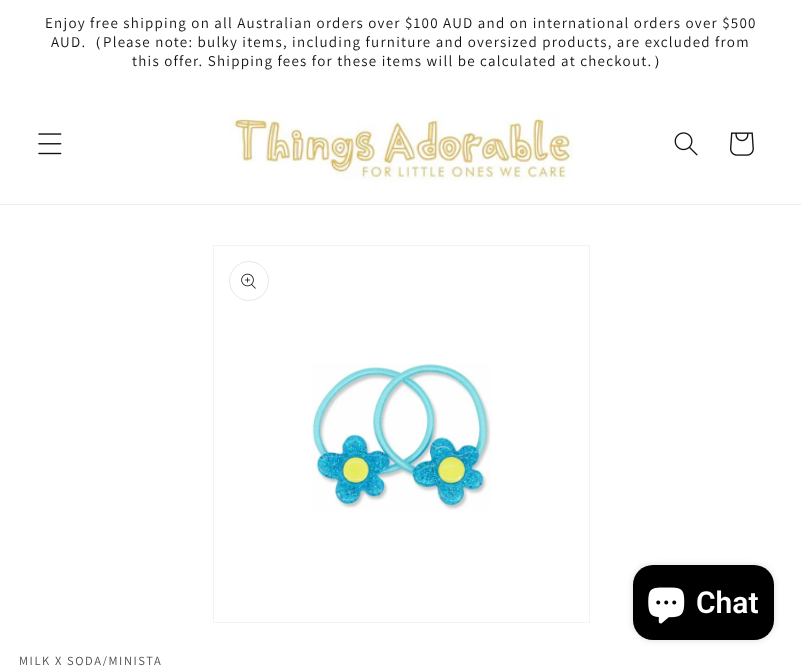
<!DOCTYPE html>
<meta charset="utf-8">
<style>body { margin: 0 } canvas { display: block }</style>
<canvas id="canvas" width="801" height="666"></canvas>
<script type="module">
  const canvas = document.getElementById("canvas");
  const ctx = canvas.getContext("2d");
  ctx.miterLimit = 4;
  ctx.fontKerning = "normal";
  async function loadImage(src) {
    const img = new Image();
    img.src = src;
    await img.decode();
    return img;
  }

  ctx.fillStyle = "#ffffff";
  ctx.fillRect(0, 0, 801, 666);
  ctx.letterSpacing = "1.25px";
  ctx.font = "15px Assistant";
  ctx.fillStyle = "#121212";
  ctx.fillText("Enjoy free shipping on all Australian orders over $100 AUD and on international orders over $500", 45, 28);
  ctx.fillText("AUD.", 51, 47);
  ctx.font = "500 15px WenQuanYi Zen Hei";
  ctx.fillText("（", 87, 47);
  ctx.font = "15px Assistant";
  ctx.fillText("Please note: bulky items, including furniture and oversized products, are excluded from", 103, 47);
  ctx.fillText("this offer. Shipping fees for these items will be calculated at checkout.", 132, 66);
  ctx.font = "500 15px WenQuanYi Zen Hei";
  ctx.fillText("）", 653, 66);
  ctx.fillStyle = "#ececec";
  ctx.fillRect(0, 204, 801, 1);
  ctx.drawImage(await loadImage("img1.png"), 38, 133, 24, 22);
  ctx.drawImage(await loadImage("img2.png"), 229, 114, 344, 69);
  ctx.drawImage(await loadImage("img3.png"), 674, 132, 24, 24);
  ctx.drawImage(await loadImage("img4.png"), 730, 132, 24, 24);
  ctx.fillStyle = "rgba(0, 0, 0, 0.15)";
  ctx.filter = "blur(3px)";
  ctx.beginPath();
  ctx.roundRect(633, 565, 141, 75, 20);
  ctx.fill();
  ctx.filter = "none";
  ctx.fillStyle = "#000000";
  ctx.beginPath();
  ctx.roundRect(633, 565, 141, 75, 20);
  ctx.fill();
  ctx.drawImage(await loadImage("img5.png"), 648, 587, 37, 37);
  ctx.letterSpacing = "0px";
  ctx.font = "600 30px Roboto";
  ctx.fillStyle = "#ffffff";
  ctx.fillText("Chat", 696, 613);
  ctx.strokeStyle = "#f3f3f3";
  ctx.strokeRect(213.5, 245.5, 376, 377);
  ctx.beginPath();
  ctx.arc(249, 281, 19.5, 0, Math.PI * 2);
  ctx.strokeStyle = "#e7e7e7";
  ctx.stroke();
  ctx.drawImage(await loadImage("img6.png"), 241, 273, 15, 16);
  ctx.drawImage(await loadImage("img7.png"), 312, 363, 179, 147);
  ctx.letterSpacing = "1.6px";
  ctx.font = "12.5px Assistant";
  ctx.fillStyle = "#4d4d4d";
  ctx.fillText("MILK X SODA/MINISTA", 19, 665);
</script>
